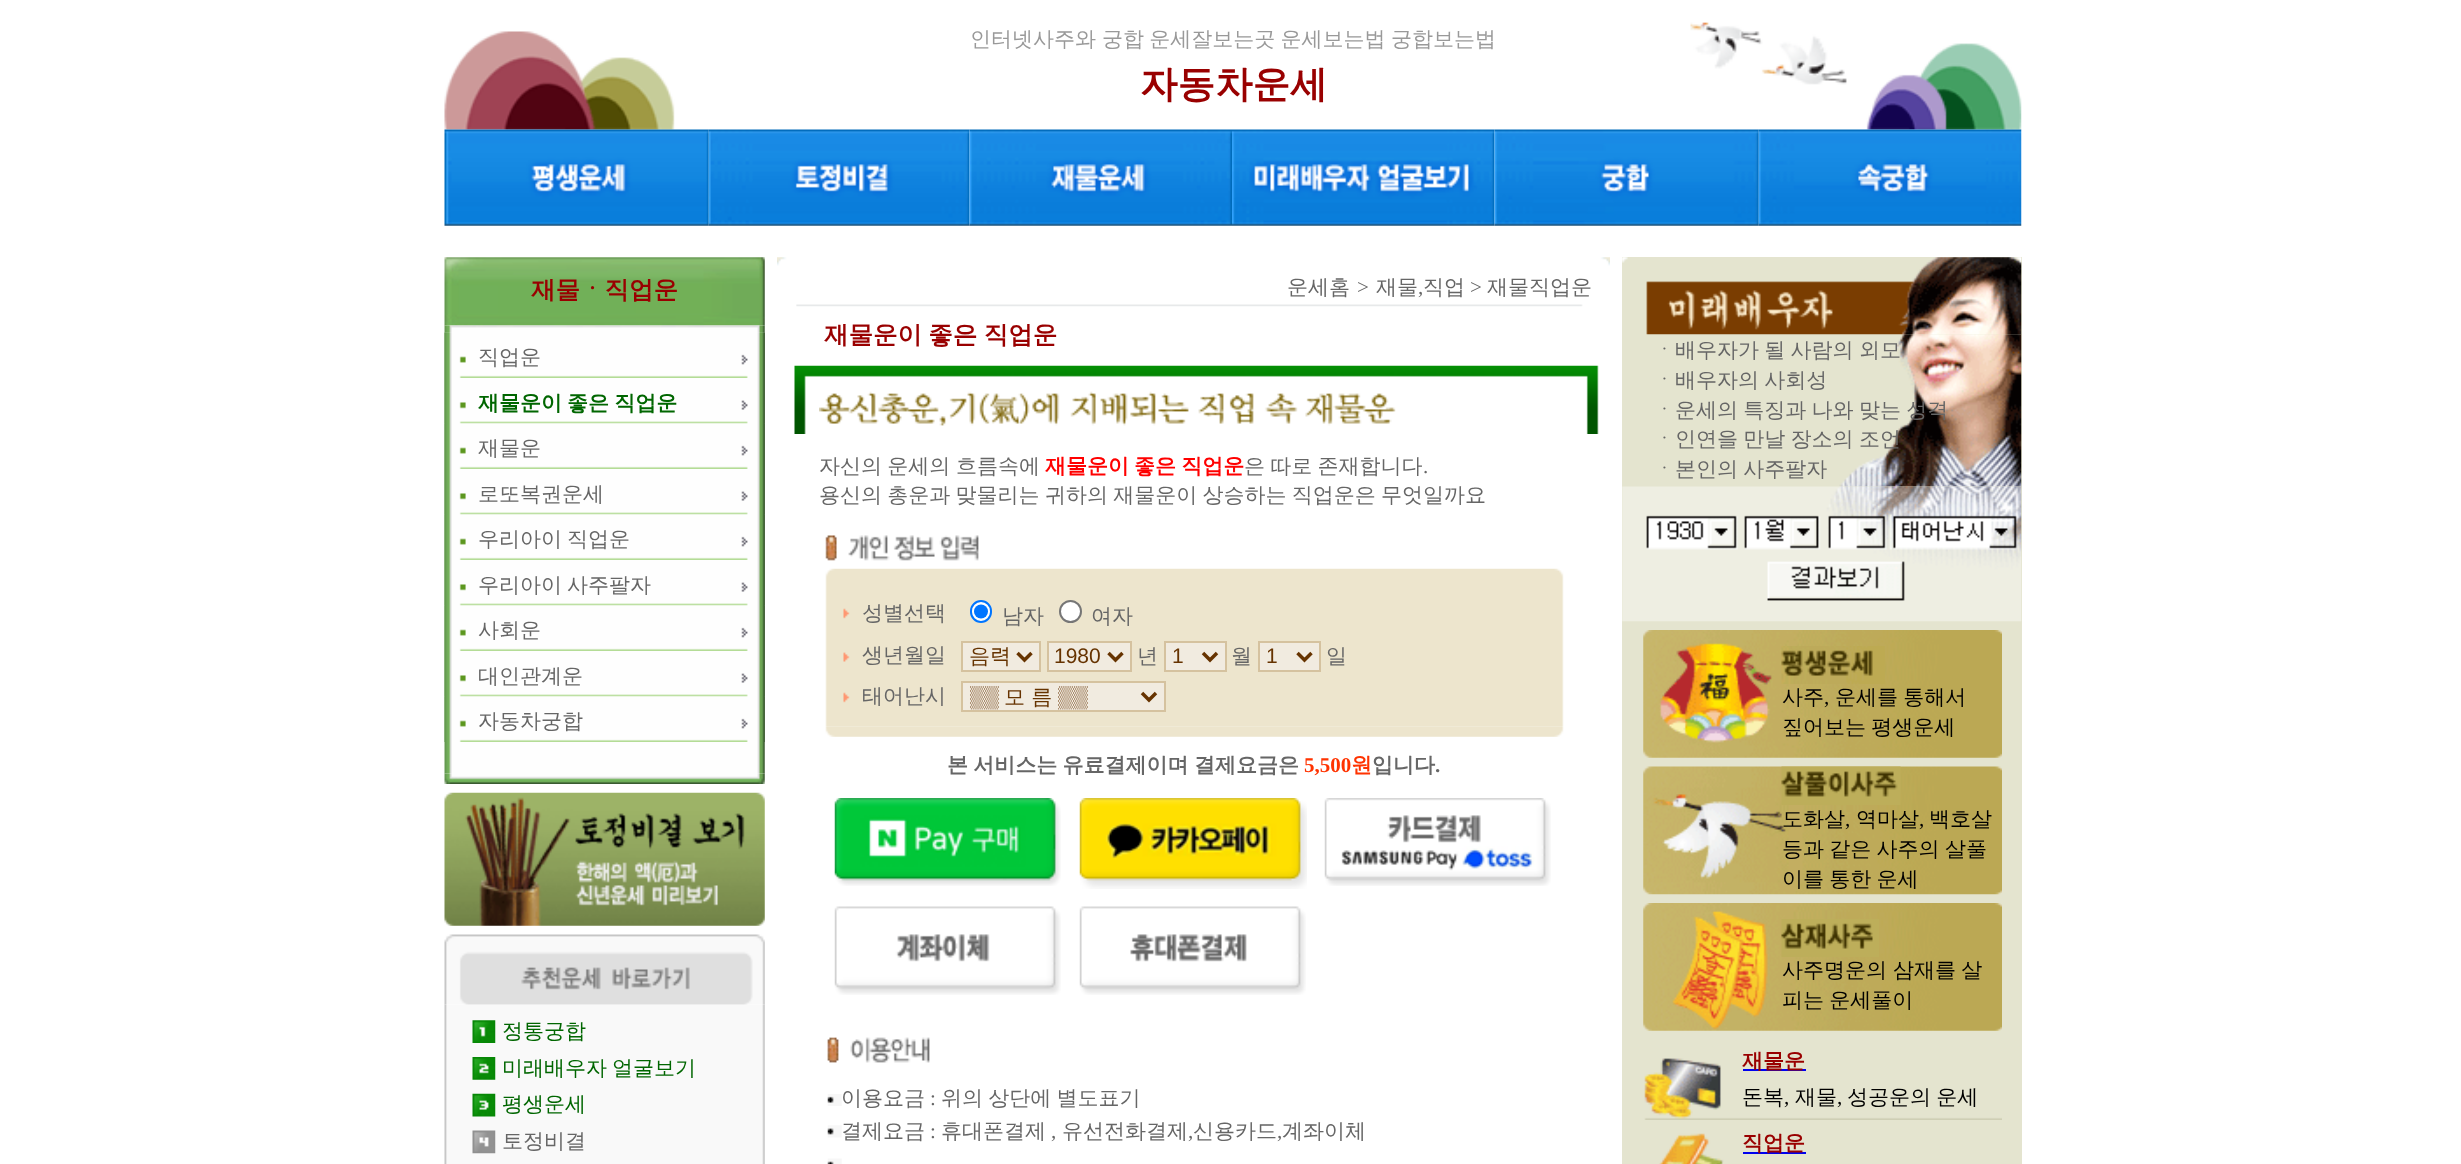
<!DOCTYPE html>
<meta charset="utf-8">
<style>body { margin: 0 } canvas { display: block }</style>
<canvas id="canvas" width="2461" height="1164"></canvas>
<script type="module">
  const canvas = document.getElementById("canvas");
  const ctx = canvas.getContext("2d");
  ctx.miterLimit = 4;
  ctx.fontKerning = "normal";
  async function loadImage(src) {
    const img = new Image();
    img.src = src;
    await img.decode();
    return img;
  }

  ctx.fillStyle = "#ffffff";
  ctx.fillRect(0, 0, 2461, 1164);
  ctx.drawImage(await loadImage("img1.png"), 444, 22, 1578, 108);
  ctx.font = "500 21px WenQuanYi Zen Hei";
  ctx.fillStyle = "#999999";
  ctx.fillText("인터넷사주와", 970, 46);
  ctx.wordSpacing = "-1px";
  ctx.fillText("궁합 운세잘보는곳 운세보는법 궁합보는법", 1102, 46);
  ctx.wordSpacing = "0px";
  ctx.font = "bold 37.5px WenQuanYi Zen Hei";
  ctx.fillStyle = "#990000";
  ctx.fillText("자동차운세", 1140, 97);
  ctx.drawImage(await loadImage("img2.png"), 444, 129, 265, 97);
  ctx.drawImage(await loadImage("img3.png"), 708, 129, 262, 97);
  ctx.drawImage(await loadImage("img4.png"), 969, 129, 263, 97);
  ctx.drawImage(await loadImage("img5.png"), 1232, 129, 263, 97);
  ctx.drawImage(await loadImage("img6.png"), 1494, 129, 265, 97);
  ctx.drawImage(await loadImage("img7.png"), 1758, 129, 264, 97);
  ctx.drawImage(await loadImage("img8.png"), 444, 257, 321, 69);
  ctx.font = "bold 24.5px WenQuanYi Zen Hei";
  ctx.fillText("재물ㆍ직업운", 531, 298);
  ctx.drawImage(await loadImage("img10.png"), 444, 332, 321, 442);
  ctx.drawImage(await loadImage("img11.png"), 444, 332, 321, 46);
  ctx.drawImage(await loadImage("img9.png"), 444, 325, 321, 8);
  ctx.font = "500 21px WenQuanYi Zen Hei";
  ctx.fillStyle = "#666666";
  ctx.fillText("직업운", 478, 364);
  ctx.drawImage(await loadImage("img12.png"), 444, 378, 321, 46);
  ctx.font = "bold 21px WenQuanYi Zen Hei";
  ctx.fillStyle = "#006600";
  ctx.fillText("재물운이", 478, 410);
  ctx.wordSpacing = "-1px";
  ctx.fillText("좋은 직업운", 567, 410);
  ctx.drawImage(await loadImage("img13.png"), 444, 423, 321, 46);
  ctx.wordSpacing = "0px";
  ctx.font = "500 21px WenQuanYi Zen Hei";
  ctx.fillStyle = "#666666";
  ctx.fillText("재물운", 478, 455);
  ctx.drawImage(await loadImage("img12.png"), 444, 469, 321, 46);
  ctx.fillText("로또복권운세", 478, 501);
  ctx.drawImage(await loadImage("img13.png"), 444, 514, 321, 46);
  ctx.fillText("우리아이", 478, 546);
  ctx.fillText("직업운", 567, 546);
  ctx.drawImage(await loadImage("img12.png"), 444, 560, 321, 46);
  ctx.fillText("우리아이", 478, 592);
  ctx.fillText("사주팔자", 567, 592);
  ctx.drawImage(await loadImage("img13.png"), 444, 605, 321, 46);
  ctx.fillText("사회운", 478, 637);
  ctx.drawImage(await loadImage("img12.png"), 444, 651, 321, 46);
  ctx.fillText("대인관계운", 478, 683);
  ctx.drawImage(await loadImage("img13.png"), 444, 696, 321, 46);
  ctx.fillText("자동차궁합", 478, 728);
  ctx.drawImage(await loadImage("img14.png"), 444, 773, 321, 11);
  ctx.drawImage(await loadImage("img15.png"), 444, 792, 321, 134);
  ctx.drawImage(await loadImage("img17.png"), 444, 1004, 321, 160);
  ctx.drawImage(await loadImage("img16.png"), 444, 934, 321, 71);
  ctx.drawImage(await loadImage("img18.png"), 472, 1020, 24, 23);
  ctx.fillStyle = "#006600";
  ctx.fillText("정통궁합", 502, 1038);
  ctx.drawImage(await loadImage("img19.png"), 472, 1057, 24, 23);
  ctx.fillText("미래배우자", 502, 1075);
  ctx.fillText("얼굴보기", 612, 1075);
  ctx.drawImage(await loadImage("img20.png"), 472, 1093, 24, 24);
  ctx.fillText("평생운세", 502, 1111);
  ctx.drawImage(await loadImage("img21.png"), 472, 1130, 24, 24);
  ctx.fillStyle = "#666666";
  ctx.fillText("토정비결", 502, 1148);
  ctx.drawImage(await loadImage("img22.png"), 777, 257, 833, 9);
  ctx.fillText("운세홈", 1287, 294);
  ctx.font = "21px Liberation Serif";
  ctx.fillText(">", 1357, 294);
  ctx.font = "500 21px WenQuanYi Zen Hei";
  ctx.fillText("재물", 1376, 294);
  ctx.fillText("직업", 1423, 294);
  ctx.font = "21px Liberation Serif";
  ctx.fillText(">", 1470, 294);
  ctx.font = "500 21px WenQuanYi Zen Hei";
  ctx.fillText("재물직업운", 1487, 294);
  ctx.font = "21px Liberation Serif";
  ctx.fillText(",", 1418, 294);
  ctx.drawImage(await loadImage("img23.png"), 796, 304, 787, 3);
  ctx.wordSpacing = "-1px";
  ctx.font = "bold 24.5px WenQuanYi Zen Hei";
  ctx.fillStyle = "#990000";
  ctx.fillText("재물운이 좋은 직업운", 824, 343);
  ctx.drawImage(await loadImage("img24.png"), 794, 365, 805, 69);
  ctx.drawImage(await loadImage("img25.png"), 819, 391, 577, 35);
  ctx.font = "500 21px WenQuanYi Zen Hei";
  ctx.fillStyle = "#666666";
  ctx.fillText("자신의 운세의", 819, 473);
  ctx.wordSpacing = "0px";
  ctx.fillText("흐름속에", 956, 473);
  ctx.font = "bold 21px WenQuanYi Zen Hei";
  ctx.fillStyle = "#ff0000";
  ctx.fillText("재물운이", 1045, 473);
  ctx.wordSpacing = "-1px";
  ctx.fillText("좋은 직업운", 1134, 473);
  ctx.font = "500 21px WenQuanYi Zen Hei";
  ctx.fillStyle = "#666666";
  ctx.fillText("은 따로 존재합니다", 1244, 473);
  ctx.wordSpacing = "0px";
  ctx.font = "21px Liberation Serif";
  ctx.fillText(".", 1423, 473);
  ctx.wordSpacing = "-1px";
  ctx.font = "500 21px WenQuanYi Zen Hei";
  ctx.fillText("용신의 총운과 맞물리는 귀하의 재물운이 상승하는 직업운은 무엇일까요", 819, 502);
  ctx.drawImage(await loadImage("img26.png"), 825, 535, 154, 26);
  ctx.drawImage(await loadImage("img27.png"), 825, 568, 739, 13);
  ctx.drawImage(await loadImage("img28.png"), 825, 581, 739, 146);
  ctx.drawImage(await loadImage("img29.png"), 843, 608, 7, 11);
  ctx.wordSpacing = "0px";
  ctx.fillText("성별선택", 862, 620);
  ctx.fillStyle = "#ffffff";
  ctx.beginPath();
  ctx.roundRect(971, 601, 20, 21, 10);
  ctx.fill();
  ctx.strokeStyle = "#0075ff";
  ctx.lineWidth = 2;
  ctx.stroke();
  ctx.fillStyle = "#0075ff";
  ctx.beginPath();
  ctx.arc(981, 611.5, 7, 0, Math.PI * 2);
  ctx.fill();
  ctx.fillStyle = "#666666";
  ctx.fillText("남자", 1002, 623);
  ctx.fillStyle = "#ffffff";
  ctx.beginPath();
  ctx.arc(1070.5, 611.5, 10.5, 0, Math.PI * 2);
  ctx.fill();
  ctx.strokeStyle = "#767676";
  ctx.stroke();
  ctx.fillStyle = "#666666";
  ctx.fillText("여자", 1091, 623);
  ctx.drawImage(await loadImage("img30.png"), 843, 652, 7, 10);
  ctx.fillText("생년월일", 862, 662);
  ctx.fillStyle = "#f1ebe0";
  ctx.beginPath();
  ctx.rect(962, 642, 78, 29);
  ctx.fill();
  ctx.strokeStyle = "#d5c29f";
  ctx.stroke();
  ctx.beginPath();
  ctx.moveTo(1017.5, 653);
  ctx.lineTo(1024.5, 660);
  ctx.lineTo(1031.5, 653);
  ctx.strokeStyle = "#663300";
  ctx.lineWidth = 3.5;
  ctx.stroke();
  ctx.fillStyle = "#663300";
  ctx.fillText("음력", 969, 663);
  ctx.fillStyle = "#f1ebe0";
  ctx.beginPath();
  ctx.rect(1048, 642, 83, 29);
  ctx.fill();
  ctx.strokeStyle = "#d5c29f";
  ctx.lineWidth = 2;
  ctx.stroke();
  ctx.beginPath();
  ctx.moveTo(1108.5, 653);
  ctx.lineTo(1115.5, 660);
  ctx.lineTo(1122.5, 653);
  ctx.strokeStyle = "#663300";
  ctx.lineWidth = 3.5;
  ctx.stroke();
  ctx.font = "21px Liberation Sans";
  ctx.fillStyle = "#663300";
  ctx.fillText("1980", 1054, 663);
  ctx.font = "500 21px WenQuanYi Zen Hei";
  ctx.fillStyle = "#666666";
  ctx.fillText("년", 1137, 663);
  ctx.fillStyle = "#f1ebe0";
  ctx.beginPath();
  ctx.rect(1165, 642, 61, 29);
  ctx.fill();
  ctx.strokeStyle = "#d5c29f";
  ctx.lineWidth = 2;
  ctx.stroke();
  ctx.beginPath();
  ctx.moveTo(1203, 653);
  ctx.lineTo(1210, 660);
  ctx.lineTo(1217, 653);
  ctx.strokeStyle = "#663300";
  ctx.lineWidth = 3.5;
  ctx.stroke();
  ctx.font = "21px Liberation Sans";
  ctx.fillStyle = "#663300";
  ctx.fillText("1", 1172, 663);
  ctx.font = "500 21px WenQuanYi Zen Hei";
  ctx.fillStyle = "#666666";
  ctx.fillText("월", 1231, 663);
  ctx.fillStyle = "#f1ebe0";
  ctx.beginPath();
  ctx.rect(1259, 642, 61, 29);
  ctx.fill();
  ctx.strokeStyle = "#d5c29f";
  ctx.lineWidth = 2;
  ctx.stroke();
  ctx.beginPath();
  ctx.moveTo(1297.5, 653);
  ctx.lineTo(1304.5, 660);
  ctx.lineTo(1311.5, 653);
  ctx.strokeStyle = "#663300";
  ctx.lineWidth = 3.5;
  ctx.stroke();
  ctx.font = "21px Liberation Sans";
  ctx.fillStyle = "#663300";
  ctx.fillText("1", 1266, 663);
  ctx.font = "500 21px WenQuanYi Zen Hei";
  ctx.fillStyle = "#666666";
  ctx.fillText("일", 1326, 663);
  ctx.drawImage(await loadImage("img29.png"), 843, 692, 7, 11);
  ctx.fillText("태어난시", 862, 703);
  ctx.fillStyle = "#f1ebe0";
  ctx.beginPath();
  ctx.rect(962, 682, 203, 29);
  ctx.fill();
  ctx.strokeStyle = "#d5c29f";
  ctx.lineWidth = 2;
  ctx.stroke();
  ctx.beginPath();
  ctx.moveTo(1142, 693);
  ctx.lineTo(1149, 700);
  ctx.lineTo(1156, 693);
  ctx.strokeStyle = "#663300";
  ctx.lineWidth = 3.5;
  ctx.stroke();
  ctx.save();
  ctx.beginPath();
  ctx.rect(970, 683, 166, 28);
  ctx.clip();
  ctx.font = "21px Liberation Sans";
  ctx.fillStyle = "#663300";
  ctx.fillText("▒▒", 969, 704);
  ctx.restore();
  ctx.fillStyle = "#663300";
  ctx.fillText("모 름", 1004, 704);
  ctx.font = "21px Liberation Sans";
  ctx.fillText("▒▒", 1058, 704);
  ctx.drawImage(await loadImage("img31.png"), 825, 726, 739, 11);
  ctx.wordSpacing = "-1px";
  ctx.font = "bold 21px WenQuanYi Zen Hei";
  ctx.fillStyle = "#666666";
  ctx.fillText("본 서비스는 유료결제이며", 947, 772);
  ctx.wordSpacing = "0px";
  ctx.fillText("결제요금은", 1194, 772);
  ctx.font = "bold 21px Liberation Serif";
  ctx.fillStyle = "#ff3300";
  ctx.fillText("5,500", 1304, 772);
  ctx.font = "bold 21px WenQuanYi Zen Hei";
  ctx.fillText("원", 1351, 772);
  ctx.fillStyle = "#666666";
  ctx.fillText("입니다", 1372, 772);
  ctx.font = "bold 21px Liberation Serif";
  ctx.fillText(".", 1435, 772);
  ctx.drawImage(await loadImage("img32.png"), 834, 798, 227, 88);
  ctx.drawImage(await loadImage("img33.png"), 1079, 798, 228, 91);
  ctx.drawImage(await loadImage("img34.png"), 1324, 798, 227, 88);
  ctx.drawImage(await loadImage("img35.png"), 834, 906, 227, 89);
  ctx.drawImage(await loadImage("img36.png"), 1079, 906, 227, 89);
  ctx.drawImage(await loadImage("img37.png"), 827, 1037, 103, 26);
  ctx.drawImage(await loadImage("img38.png"), 827, 1094, 15, 12);
  ctx.font = "500 21px WenQuanYi Zen Hei";
  ctx.fillText("이용요금", 841, 1105);
  ctx.font = "21px Liberation Serif";
  ctx.fillText(":", 930, 1105);
  ctx.wordSpacing = "-1px";
  ctx.font = "500 21px WenQuanYi Zen Hei";
  ctx.fillText("위의 상단에 별도표기", 941, 1105);
  ctx.drawImage(await loadImage("img39.png"), 827, 1125, 15, 13);
  ctx.wordSpacing = "0px";
  ctx.fillText("결제요금", 841, 1138);
  ctx.font = "21px Liberation Serif";
  ctx.fillText(":", 930, 1138);
  ctx.font = "500 21px WenQuanYi Zen Hei";
  ctx.fillText("휴대폰결제", 941, 1138);
  ctx.font = "21px Liberation Serif";
  ctx.fillText(",", 1051, 1138);
  ctx.font = "500 21px WenQuanYi Zen Hei";
  ctx.fillText("유선전화결제", 1062, 1138);
  ctx.font = "21px Liberation Serif";
  ctx.fillText(",", 1188, 1138);
  ctx.font = "500 21px WenQuanYi Zen Hei";
  ctx.fillText("신용카드", 1193, 1138);
  ctx.font = "21px Liberation Serif";
  ctx.fillText(",", 1277, 1138);
  ctx.font = "500 21px WenQuanYi Zen Hei";
  ctx.fillText("계좌이체", 1282, 1138);
  ctx.drawImage(await loadImage("img40.png"), 827, 1158, 15, 6);
  ctx.fillStyle = "#e4e4cf";
  ctx.fillRect(1622, 257, 400, 907);
  ctx.drawImage(await loadImage("img42.png"), 1839, 334, 183, 153);
  ctx.drawImage(await loadImage("img41.png"), 1622, 257, 400, 78);
  ctx.wordSpacing = "-1px";
  ctx.fillStyle = "#666666";
  ctx.fillText("ㆍ배우자가 될 사람의 외모", 1654, 357);
  ctx.fillText("ㆍ배우자의 사회성", 1654, 387);
  ctx.fillText("ㆍ운세의 특징과 나와 맞는 성격", 1654, 417);
  ctx.fillText("ㆍ인연을 만날 장소의 조언", 1654, 446);
  ctx.fillText("ㆍ본인의 사주팔자", 1654, 476);
  ctx.drawImage(await loadImage("img43.png"), 1622, 486, 400, 136);
  ctx.drawImage(await loadImage("img44.png"), 1643, 630, 359, 128);
  ctx.drawImage(await loadImage("img45.png"), 1781, 646, 104, 38);
  ctx.wordSpacing = "0px";
  ctx.fillStyle = "#000000";
  ctx.fillText("사주", 1782, 704);
  ctx.font = "21px Liberation Serif";
  ctx.fillText(",", 1824, 704);
  ctx.wordSpacing = "-1px";
  ctx.font = "500 21px WenQuanYi Zen Hei";
  ctx.fillText("운세를 통해서", 1835, 704);
  ctx.fillText("짚어보는 평생운세", 1782, 734);
  ctx.drawImage(await loadImage("img46.png"), 1643, 766, 359, 129);
  ctx.drawImage(await loadImage("img47.png"), 1781, 766, 120, 39);
  ctx.wordSpacing = "0px";
  ctx.fillText("도화살", 1782, 826);
  ctx.font = "21px Liberation Serif";
  ctx.fillText(",", 1845, 826);
  ctx.font = "500 21px WenQuanYi Zen Hei";
  ctx.fillText("역마살", 1856, 826);
  ctx.font = "21px Liberation Serif";
  ctx.fillText(",", 1919, 826);
  ctx.font = "500 21px WenQuanYi Zen Hei";
  ctx.fillText("백호살", 1929, 826);
  ctx.wordSpacing = "-1px";
  ctx.fillText("등과 같은 사주의 살풀", 1782, 856);
  ctx.fillText("이를 통한 운세", 1782, 886);
  ctx.drawImage(await loadImage("img48.png"), 1643, 903, 359, 128);
  ctx.drawImage(await loadImage("img49.png"), 1781, 919, 98, 38);
  ctx.wordSpacing = "0px";
  ctx.fillText("사주명운의", 1782, 977);
  ctx.wordSpacing = "-1px";
  ctx.fillText("삼재를 살", 1893, 977);
  ctx.fillText("피는 운세풀이", 1782, 1007);
  ctx.drawImage(await loadImage("img50.png"), 1644, 1058, 358, 62);
  ctx.fillStyle = "#0000ee";
  ctx.fillRect(1743, 1069, 63, 2);
  ctx.wordSpacing = "0px";
  ctx.font = "bold 21px WenQuanYi Zen Hei";
  ctx.fillStyle = "#990000";
  ctx.fillText("재물운", 1742, 1068);
  ctx.font = "500 21px WenQuanYi Zen Hei";
  ctx.fillStyle = "#000000";
  ctx.fillText("돈복", 1742, 1104);
  ctx.font = "21px Liberation Serif";
  ctx.fillText(",", 1784, 1104);
  ctx.font = "500 21px WenQuanYi Zen Hei";
  ctx.fillText("재물", 1795, 1104);
  ctx.font = "21px Liberation Serif";
  ctx.fillText(",", 1837, 1104);
  ctx.wordSpacing = "-1px";
  ctx.font = "500 21px WenQuanYi Zen Hei";
  ctx.fillText("성공운의 운세", 1847, 1104);
  ctx.drawImage(await loadImage("img51.png"), 1659, 1133, 65, 31);
  ctx.fillStyle = "#0000ee";
  ctx.fillRect(1743, 1152, 63, 2);
  ctx.wordSpacing = "0px";
  ctx.font = "bold 21px WenQuanYi Zen Hei";
  ctx.fillStyle = "#990000";
  ctx.fillText("직업운", 1742, 1150);
</script>
